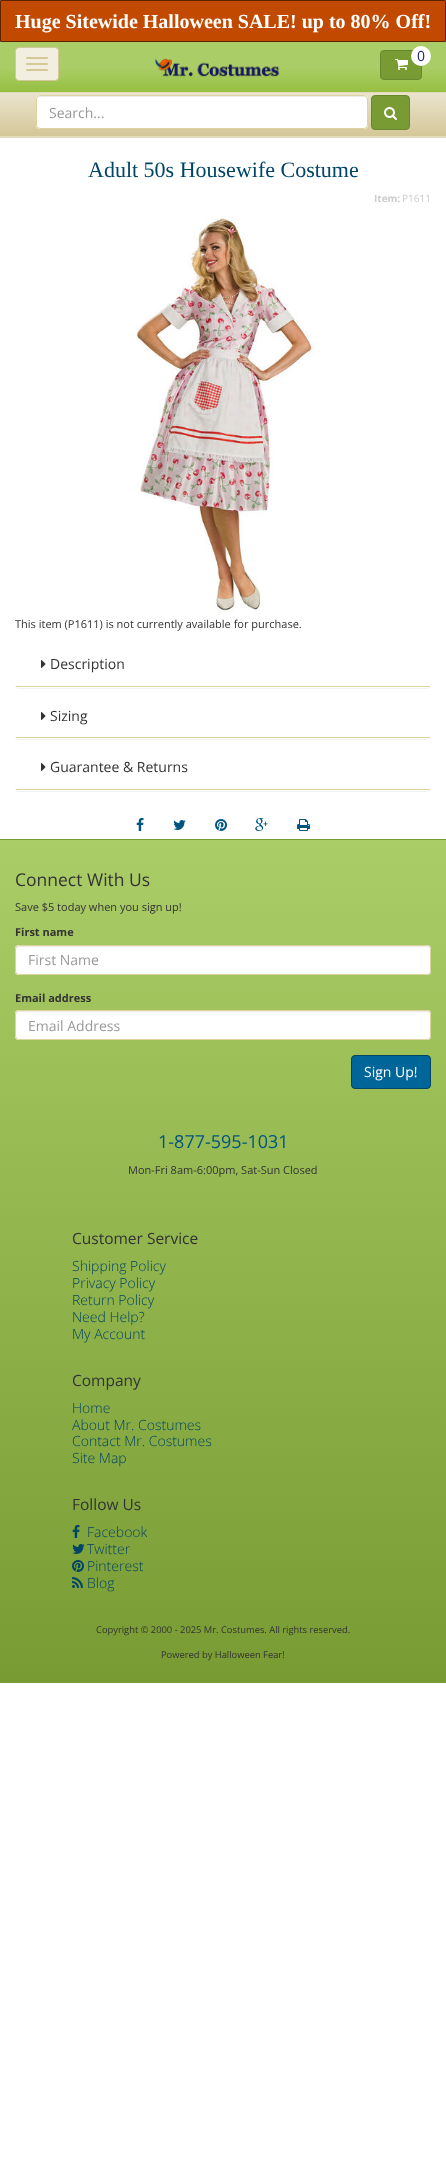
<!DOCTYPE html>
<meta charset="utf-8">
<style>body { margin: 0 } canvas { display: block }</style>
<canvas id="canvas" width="446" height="2177"></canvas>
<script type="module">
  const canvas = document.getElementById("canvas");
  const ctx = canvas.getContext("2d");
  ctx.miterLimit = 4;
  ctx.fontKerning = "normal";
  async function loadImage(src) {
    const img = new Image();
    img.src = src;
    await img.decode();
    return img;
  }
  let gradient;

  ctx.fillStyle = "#ffffff";
  ctx.fillRect(0, 0, 446, 2177);
  ctx.fillStyle = "#c24a00";
  ctx.beginPath();
  ctx.rect(0.5, 0.5, 445, 41);
  ctx.fill();
  ctx.strokeStyle = "#5c2300";
  ctx.stroke();
  ctx.font = "bold 20px Liberation Serif";
  ctx.fillStyle = "#ffffff";
  ctx.fillText("Huge Sitewide Halloween SALE! up to 80% Off!", 15, 28);
  ctx.fillStyle = "#e3dabc";
  ctx.fillRect(0, 136, 446, 2);
  gradient = ctx.createLinearGradient(223, 42, 223, 92);
  gradient.addColorStop(0.5, "#abcd67");
  gradient.addColorStop(1, "#96c041");
  ctx.fillStyle = gradient;
  ctx.fillRect(0, 42, 446, 50);
  ctx.fillStyle = "#f2eee0";
  ctx.beginPath();
  ctx.roundRect(15.5, 47.5, 43, 33, 3.5);
  ctx.fill();
  ctx.strokeStyle = "#d4c798";
  ctx.stroke();
  ctx.fillStyle = "#d4c798";
  ctx.beginPath();
  ctx.roundRect(26, 57, 22, 2, 1);
  ctx.fill();
  ctx.beginPath();
  ctx.roundRect(26, 63, 22, 2, 1);
  ctx.fill();
  ctx.beginPath();
  ctx.roundRect(26, 69, 22, 2, 1);
  ctx.fill();
  ctx.fillStyle = "#789b33";
  ctx.beginPath();
  ctx.roundRect(380.5, 50.5, 41, 29, 3.5);
  ctx.fill();
  ctx.strokeStyle = "#69882d";
  ctx.stroke();
  ctx.fillStyle = "#ffffff";
  ctx.beginPath();
  ctx.arc(421, 56, 10, 0, Math.PI * 2);
  ctx.fill();
  ctx.font = "14px Open Sans";
  ctx.fillStyle = "#14187a";
  ctx.fillText("0", 417, 61);
  ctx.drawImage(await loadImage("img1.png"), 395, 59, 13, 11);
  ctx.drawImage(await loadImage("img2.png"), 154, 58, 126, 19);
  gradient = ctx.createLinearGradient(223, 93, 223, 136);
  gradient.addColorStop(0, "#eae4ce");
  gradient.addColorStop(1, "#d4c798");
  ctx.fillStyle = gradient;
  ctx.fillRect(0, 93, 446, 43);
  ctx.fillStyle = "#e3dabc";
  ctx.fillRect(0, 92, 446, 1);
  ctx.fillStyle = "#ffffff";
  ctx.beginPath();
  ctx.roundRect(36, 95, 332, 34, 4);
  ctx.fill();
  ctx.fillStyle = "#ececec";
  ctx.beginPath();
  ctx.moveTo(40, 97);
  ctx.lineTo(364, 97);
  ctx.bezierCurveTo(366, 97, 367, 98, 367, 100);
  ctx.bezierCurveTo(367, 98, 366, 96, 364, 96);
  ctx.lineTo(40, 96);
  ctx.bezierCurveTo(38, 96, 37, 98, 37, 100);
  ctx.bezierCurveTo(37, 98, 38, 97, 40, 97);
  ctx.closePath();
  ctx.fill();
  ctx.beginPath();
  ctx.roundRect(36.5, 95.5, 331, 33, 3.5);
  ctx.strokeStyle = "#ded29e";
  ctx.stroke();
  ctx.fillStyle = "#999999";
  ctx.fillText("Search...", 49, 118);
  ctx.fillStyle = "#789b33";
  ctx.beginPath();
  ctx.roundRect(371.5, 95.5, 38, 34, 3.5);
  ctx.fill();
  ctx.strokeStyle = "#69882d";
  ctx.stroke();
  ctx.drawImage(await loadImage("img3.png"), 384, 107, 13, 13);
  ctx.font = "22px Liberation Serif";
  ctx.fillStyle = "#004466";
  ctx.fillText("Adult 50s Housewife Costume", 88, 177);
  ctx.font = "bold 10px Open Sans";
  ctx.fillStyle = "#cccccc";
  ctx.fillText("Item:", 374, 202);
  ctx.font = "10px Open Sans";
  ctx.fillText("P1611", 402, 202);
  ctx.drawImage(await loadImage("img4.png"), 136, 216, 179, 398);
  ctx.font = "11px Open Sans";
  ctx.fillStyle = "#333333";
  ctx.fillText("This item (P1611) is not currently available for purchase.", 15, 628);
  ctx.fillStyle = "rgba(0, 0, 0, 0.05)";
  ctx.filter = "blur(0.5px)";
  ctx.beginPath();
  ctx.roundRect(15, 642, 416, 47, 4);
  ctx.fill();
  ctx.filter = "none";
  ctx.fillStyle = "#ffffff";
  ctx.beginPath();
  ctx.roundRect(15, 641, 416, 47, 4);
  ctx.fill();
  ctx.fillStyle = "#ded29e";
  ctx.fillRect(16, 686, 414, 1);
  ctx.drawImage(await loadImage("img5.png"), 41, 660, 5, 8);
  ctx.font = "14px Open Sans";
  ctx.fillStyle = "#333333";
  ctx.fillText("Description", 50, 669);
  ctx.fillStyle = "rgba(0, 0, 0, 0.05)";
  ctx.filter = "blur(0.5px)";
  ctx.beginPath();
  ctx.roundRect(15, 694, 416, 46, 4);
  ctx.fill();
  ctx.filter = "none";
  ctx.fillStyle = "#ffffff";
  ctx.beginPath();
  ctx.roundRect(15, 693, 416, 46, 4);
  ctx.fill();
  ctx.fillStyle = "#ded29e";
  ctx.fillRect(16, 737, 414, 1);
  ctx.drawImage(await loadImage("img5.png"), 41, 712, 5, 8);
  ctx.fillStyle = "#333333";
  ctx.fillText("Sizing", 50, 721);
  ctx.fillStyle = "rgba(0, 0, 0, 0.05)";
  ctx.filter = "blur(0.5px)";
  ctx.beginPath();
  ctx.roundRect(15, 745, 416, 47, 4);
  ctx.fill();
  ctx.filter = "none";
  ctx.fillStyle = "#ffffff";
  ctx.beginPath();
  ctx.roundRect(15, 744, 416, 47, 4);
  ctx.fill();
  ctx.fillStyle = "#ded29e";
  ctx.fillRect(16, 789, 414, 1);
  ctx.drawImage(await loadImage("img5.png"), 41, 763, 5, 8);
  ctx.fillStyle = "#333333";
  ctx.fillText("Guarantee & Returns", 50, 772);
  ctx.drawImage(await loadImage("img6.png"), 136, 818, 8, 13);
  ctx.drawImage(await loadImage("img7.png"), 173, 820, 13, 10);
  ctx.drawImage(await loadImage("img8.png"), 215, 819, 12, 12);
  ctx.drawImage(await loadImage("img9.png"), 255, 818, 13, 13);
  ctx.drawImage(await loadImage("img10.png"), 297, 819, 13, 12);
  gradient = ctx.createLinearGradient(223, 840, 223, 1683);
  gradient.addColorStop(0, "#abcd67");
  gradient.addColorStop(1, "#789b33");
  ctx.fillStyle = gradient;
  ctx.fillRect(0, 840, 446, 843);
  ctx.fillStyle = "#789b33";
  ctx.fillRect(0, 839, 446, 1);
  ctx.font = "17.5px Open Sans";
  ctx.fillStyle = "#333333";
  ctx.fillText("Connect With Us", 15, 886);
  ctx.font = "11px Open Sans";
  ctx.fillText("Save $5 today when you sign up!", 15, 911);
  ctx.font = "bold 11px Open Sans";
  ctx.fillText("First name", 15, 936);
  ctx.fillStyle = "#ffffff";
  ctx.beginPath();
  ctx.roundRect(15, 945, 416, 30, 4);
  ctx.fill();
  ctx.fillStyle = "#ececec";
  ctx.beginPath();
  ctx.moveTo(19, 947);
  ctx.lineTo(427, 947);
  ctx.bezierCurveTo(429, 947, 430, 948, 430, 950);
  ctx.bezierCurveTo(430, 948, 429, 946, 427, 946);
  ctx.lineTo(19, 946);
  ctx.bezierCurveTo(17, 946, 16, 948, 16, 950);
  ctx.bezierCurveTo(16, 948, 17, 947, 19, 947);
  ctx.closePath();
  ctx.fill();
  ctx.beginPath();
  ctx.roundRect(15.5, 945.5, 415, 29, 3.5);
  ctx.strokeStyle = "#ded29e";
  ctx.stroke();
  ctx.font = "14px Open Sans";
  ctx.fillStyle = "#999999";
  ctx.fillText("First Name", 28, 965);
  ctx.font = "bold 11px Open Sans";
  ctx.fillStyle = "#333333";
  ctx.fillText("Email address", 15, 1002);
  ctx.fillStyle = "#ffffff";
  ctx.beginPath();
  ctx.roundRect(15, 1010, 416, 30, 4);
  ctx.fill();
  ctx.fillStyle = "#ececec";
  ctx.beginPath();
  ctx.moveTo(19, 1012);
  ctx.lineTo(427, 1012);
  ctx.bezierCurveTo(429, 1012, 430, 1013, 430, 1015);
  ctx.bezierCurveTo(430, 1013, 429, 1011, 427, 1011);
  ctx.lineTo(19, 1011);
  ctx.bezierCurveTo(17, 1011, 16, 1013, 16, 1015);
  ctx.bezierCurveTo(16, 1013, 17, 1012, 19, 1012);
  ctx.closePath();
  ctx.fill();
  ctx.beginPath();
  ctx.roundRect(15.5, 1010.5, 415, 29, 3.5);
  ctx.stroke();
  ctx.font = "14px Open Sans";
  ctx.fillStyle = "#999999";
  ctx.fillText("Email Address", 28, 1031);
  ctx.fillStyle = "#006699";
  ctx.beginPath();
  ctx.roundRect(351.5, 1055.5, 79, 33, 3.5);
  ctx.fill();
  ctx.strokeStyle = "#004466";
  ctx.stroke();
  ctx.fillStyle = "#ffffff";
  ctx.fillText("Sign Up!", 364, 1077);
  ctx.font = "18px Open Sans";
  ctx.fillStyle = "#005580";
  ctx.fillText("1-877-595-1031", 158, 1148);
  ctx.font = "11px Open Sans";
  ctx.fillStyle = "#333333";
  ctx.fillText("Mon-Fri 8am-6:00pm, Sat-Sun Closed", 128, 1174);
  ctx.font = "15.5px Open Sans";
  ctx.fillText("Customer Service", 72, 1244);
  ctx.font = "300 14px Open Sans";
  ctx.fillStyle = "#004466";
  ctx.fillText("Shipping Policy", 72, 1271);
  ctx.fillText("Privacy Policy", 72, 1288);
  ctx.fillText("Return Policy", 72, 1305);
  ctx.fillText("Need Help?", 72, 1322);
  ctx.fillText("My Account", 72, 1339);
  ctx.font = "15.5px Open Sans";
  ctx.fillStyle = "#333333";
  ctx.fillText("Company", 72, 1386);
  ctx.font = "300 14px Open Sans";
  ctx.fillStyle = "#004466";
  ctx.fillText("Home", 72, 1413);
  ctx.fillText("About Mr. Costumes", 72, 1430);
  ctx.fillText("Contact Mr. Costumes", 72, 1446);
  ctx.fillText("Site Map", 72, 1463);
  ctx.font = "15.5px Open Sans";
  ctx.fillStyle = "#333333";
  ctx.fillText("Follow Us", 72, 1510);
  ctx.drawImage(await loadImage("img11.png"), 72, 1525, 8, 13);
  ctx.font = "300 14px Open Sans";
  ctx.fillStyle = "#004466";
  ctx.fillText("Facebook", 87, 1537);
  ctx.drawImage(await loadImage("img12.png"), 72, 1544, 13, 10);
  ctx.fillText("Twitter", 87, 1554);
  ctx.drawImage(await loadImage("img13.png"), 72, 1560, 12, 12);
  ctx.fillText("Pinterest", 87, 1571);
  ctx.drawImage(await loadImage("img14.png"), 72, 1577, 11, 11);
  ctx.fillText("Blog", 87, 1588);
  ctx.font = "9.35px Open Sans";
  ctx.fillStyle = "#333333";
  ctx.fillText("Copyright © 2000 - 2025 Mr. Costumes. All rights reserved.", 96, 1633);
  ctx.fillText("Powered by Halloween Fear!", 161, 1658);
</script>
